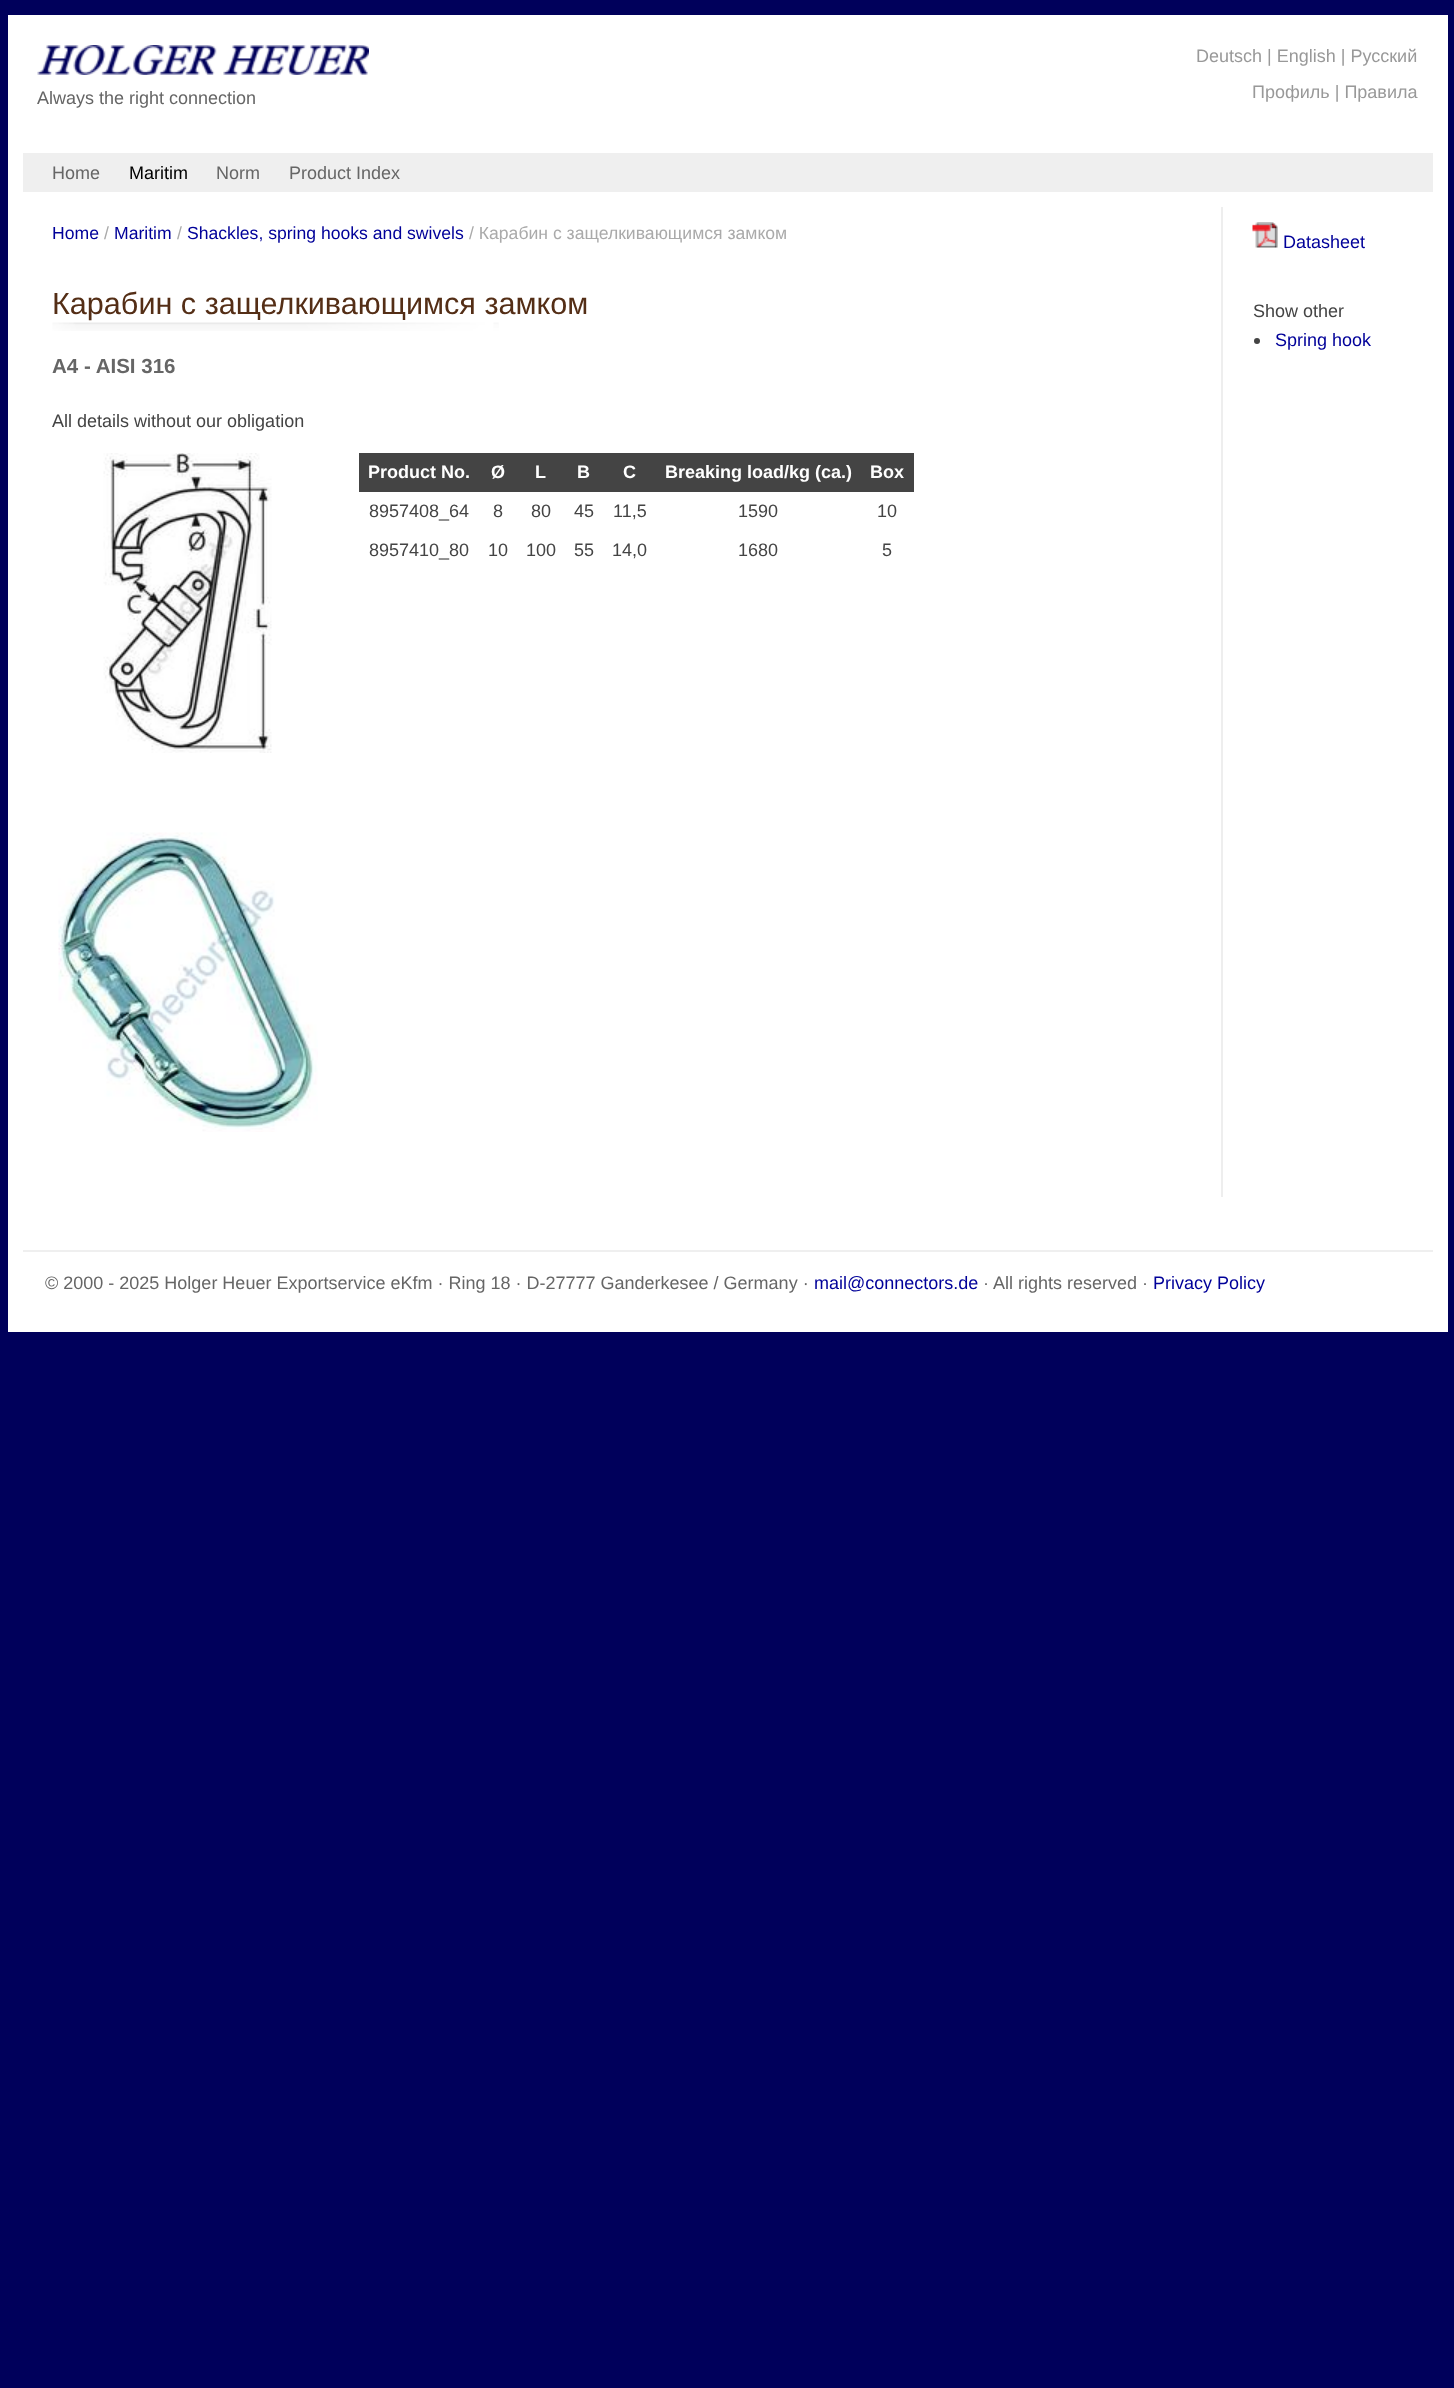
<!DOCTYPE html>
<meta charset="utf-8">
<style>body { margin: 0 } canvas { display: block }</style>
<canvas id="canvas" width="1454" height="2388"></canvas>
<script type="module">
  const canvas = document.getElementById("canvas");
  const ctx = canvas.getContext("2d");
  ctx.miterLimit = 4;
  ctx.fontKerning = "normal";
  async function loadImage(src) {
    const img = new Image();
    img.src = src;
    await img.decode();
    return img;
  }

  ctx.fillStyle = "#00005b";
  ctx.fillRect(0, 0, 1454, 2388);
  ctx.fillStyle = "#ffffff";
  ctx.fillRect(8, 15, 1440, 1317);
  ctx.drawImage(await loadImage("img1.png"), 37, 45, 332, 30);
  ctx.font = "18px Liberation Sans";
  ctx.fillStyle = "#666666";
  ctx.fillText("Always the right connection", 37, 104);
  ctx.fillStyle = "#999999";
  ctx.fillText("Deutsch | English | Русский", 1196, 62);
  ctx.fillText("Профиль | Правила", 1252, 98);
  ctx.fillStyle = "#efefef";
  ctx.fillRect(23, 153, 1410, 39);
  ctx.fillStyle = "#666666";
  ctx.fillText("Home", 52, 179);
  ctx.fillStyle = "#000000";
  ctx.fillText("Maritim", 129, 179);
  ctx.fillStyle = "#666666";
  ctx.fillText("Norm", 216, 179);
  ctx.fillText("Product Index", 289, 179);
  ctx.font = "17.6px Liberation Sans";
  ctx.fillStyle = "#000099";
  ctx.fillText("Home", 52, 239);
  ctx.fillStyle = "#aaaaaa";
  ctx.fillText("/", 104, 239);
  ctx.fillStyle = "#000099";
  ctx.fillText("Maritim", 114, 239);
  ctx.fillStyle = "#aaaaaa";
  ctx.fillText("/", 177, 239);
  ctx.fillStyle = "#000099";
  ctx.fillText("Shackles, spring hooks and swivels", 187, 239);
  ctx.fillStyle = "#aaaaaa";
  ctx.fillText("/ Карабин с защелкивающимся замком", 469, 239);
  ctx.drawImage(await loadImage("img2.png"), 52, 322, 447, 9);
  ctx.font = "30.6px Liberation Sans";
  ctx.fillStyle = "#542e16";
  ctx.fillText("Карабин с защелкивающимся замком", 52, 314);
  ctx.font = "bold 20.5px Liberation Sans";
  ctx.fillStyle = "#666666";
  ctx.fillText("A4 - AISI 316", 52, 373);
  ctx.font = "18px Liberation Sans";
  ctx.fillStyle = "#444444";
  ctx.fillText("All details without our obligation", 52, 427);
  ctx.drawImage(await loadImage("img3.png"), 103, 453, 169, 300);
  ctx.drawImage(await loadImage("img4.png"), 58, 832, 260, 300);
  ctx.fillRect(359, 453, 555, 39);
  ctx.font = "bold 18px Liberation Sans";
  ctx.fillStyle = "#ffffff";
  ctx.fillText("Product No.", 368, 478);
  ctx.fillText("Ø", 491, 478);
  ctx.fillText("L", 535, 478);
  ctx.fillText("B", 577, 478);
  ctx.fillText("C", 623, 478);
  ctx.fillText("Breaking load/kg (ca.)", 665, 478);
  ctx.fillText("Box", 870, 478);
  ctx.font = "18px Liberation Sans";
  ctx.fillStyle = "#444444";
  ctx.fillText("8957408_64", 369, 517);
  ctx.fillText("8", 493, 517);
  ctx.fillText("80", 531, 517);
  ctx.fillText("45", 574, 517);
  ctx.fillText("11,5", 613, 517);
  ctx.fillText("1590", 738, 517);
  ctx.fillText("10", 877, 517);
  ctx.fillText("8957410_80", 369, 556);
  ctx.fillText("10", 488, 556);
  ctx.fillText("100", 526, 556);
  ctx.fillText("55", 574, 556);
  ctx.fillText("14,0", 612, 556);
  ctx.fillText("1680", 738, 556);
  ctx.fillText("5", 882, 556);
  ctx.fillStyle = "#eeeeee";
  ctx.fillRect(1221, 207, 2, 990);
  ctx.drawImage(await loadImage("img5.png"), 1252, 222, 26, 26);
  ctx.fillStyle = "#000099";
  ctx.fillText("Datasheet", 1283, 248);
  ctx.fillStyle = "#444444";
  ctx.fillText("Show other", 1253, 317);
  ctx.beginPath();
  ctx.arc(1257, 341, 3, 0, Math.PI * 2);
  ctx.fill();
  ctx.fillStyle = "#000099";
  ctx.fillText("Spring hook", 1275, 346);
  ctx.fillStyle = "#efefef";
  ctx.fillRect(23, 1250, 1410, 2);
  ctx.fillStyle = "#666666";
  ctx.fillText("© 2000 - 2025 Holger Heuer Exportservice eKfm · Ring 18 · D-27777 Ganderkesee / Germany ·", 45, 1289);
  ctx.fillStyle = "#000099";
  ctx.fillText("mail@connectors.de", 814, 1289);
  ctx.fillStyle = "#666666";
  ctx.fillText("· All rights reserved ·", 983, 1289);
  ctx.fillStyle = "#000099";
  ctx.fillText("Privacy Policy", 1153, 1289);
</script>
